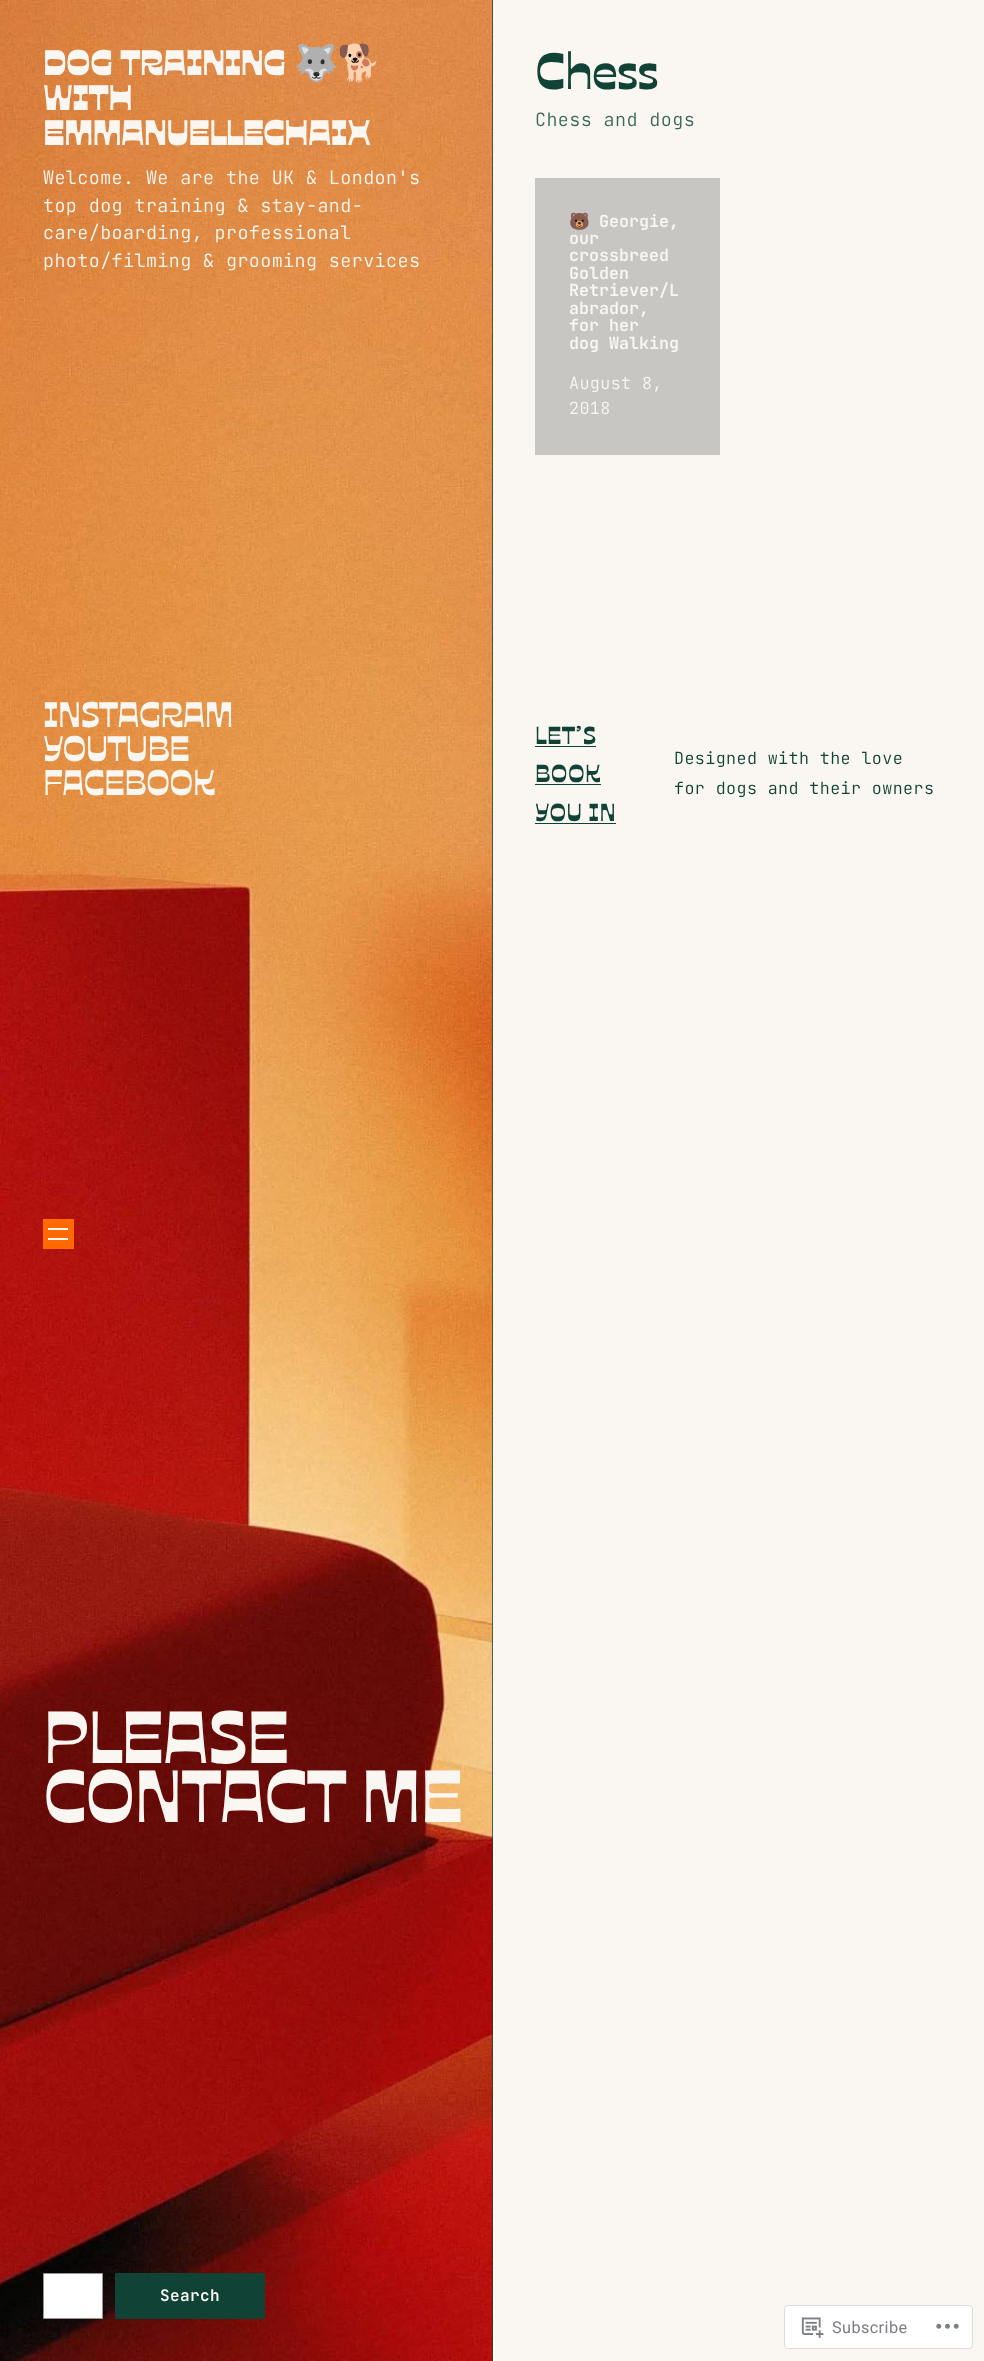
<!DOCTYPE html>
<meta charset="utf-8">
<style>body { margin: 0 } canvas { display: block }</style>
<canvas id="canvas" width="984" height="2361"></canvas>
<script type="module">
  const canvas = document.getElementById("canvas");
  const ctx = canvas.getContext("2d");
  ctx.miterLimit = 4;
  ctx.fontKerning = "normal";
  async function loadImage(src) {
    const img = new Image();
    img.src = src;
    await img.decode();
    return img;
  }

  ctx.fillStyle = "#faf7f2";
  ctx.fillRect(0, 0, 984, 2361);
  ctx.fillStyle = "#104235";
  ctx.fillRect(492, 0, 1, 2361);
  ctx.drawImage(await loadImage("img1.png"), 0, 0, 493, 2361);
  ctx.letterSpacing = "-0.75px";
  ctx.font = "800 35.5px Ojuju";
  ctx.fillStyle = "#faf7f2";
  ctx.fillText("DOG TRAINING", 43, 75);
  ctx.font = "bold 35.5px Noto Color Emoji";
  ctx.fillText("🐺🐕", 294, 75);
  ctx.font = "800 35.5px Ojuju";
  ctx.fillText("WITH", 43, 110);
  ctx.fillText("EMMANUELLECHAIX", 43, 145);
  ctx.letterSpacing = "0.4px";
  ctx.font = "300 18.4px JetBrains Mono";
  ctx.fillText("Welcome. We are the UK & London's", 43, 184);
  ctx.fillText("top dog training & stay-and-", 43, 212);
  ctx.fillText("care/boarding, professional", 43, 239);
  ctx.fillText("photo/filming & grooming services", 43, 267);
  ctx.letterSpacing = "-0.75px";
  ctx.font = "bold 35.5px Ojuju";
  ctx.fillText("INSTAGRAM", 43, 727);
  ctx.fillText("YOUTUBE", 43, 761);
  ctx.fillText("FACEBOOK", 43, 795);
  ctx.fillStyle = "#ff6900";
  ctx.fillRect(43, 1219, 31, 30);
  ctx.fillStyle = "#faf7f2";
  ctx.fillRect(48, 1228, 20, 2);
  ctx.fillRect(48, 1238, 20, 2);
  ctx.letterSpacing = "-1.5px";
  ctx.font = "bold 73.75px Ojuju";
  ctx.fillText("PLEASE", 43, 1763);
  ctx.fillText("CONTACT ME", 43, 1822);
  ctx.fillStyle = "#ffffff";
  ctx.beginPath();
  ctx.rect(43.5, 2273.5, 59, 45);
  ctx.fill();
  ctx.strokeStyle = "#949494";
  ctx.stroke();
  ctx.fillStyle = "#104235";
  ctx.fillRect(115, 2273, 150, 46);
  ctx.letterSpacing = "0.4px";
  ctx.font = "600 16px JetBrains Mono";
  ctx.fillStyle = "#faf7f2";
  ctx.fillText("Search", 160, 2301);
  ctx.letterSpacing = "-1px";
  ctx.font = "bold 51px Ojuju";
  ctx.fillStyle = "#104235";
  ctx.fillText("Chess", 535, 89);
  ctx.letterSpacing = "0.4px";
  ctx.font = "300 18.4px JetBrains Mono";
  ctx.fillStyle = "#3c695c";
  ctx.fillText("Chess and dogs", 535, 126);
  ctx.fillStyle = "#c8c6c2";
  ctx.fillRect(535, 178, 185, 277);
  ctx.letterSpacing = "0px";
  ctx.font = "bold 16.7px Noto Color Emoji";
  ctx.fillStyle = "#faf7f2";
  ctx.fillText("🐻", 569, 227);
  ctx.font = "600 16.7px JetBrains Mono";
  ctx.fillText("Georgie,", 599, 227);
  ctx.fillText("our", 569, 244);
  ctx.fillText("crossbreed", 569, 261);
  ctx.fillText("Golden", 569, 279);
  ctx.fillText("Retriever/L", 569, 296);
  ctx.fillText("abrador,", 569, 314);
  ctx.fillText("for her", 569, 331);
  ctx.fillText("dog Walking", 569, 349);
  ctx.letterSpacing = "0.4px";
  ctx.font = "300 16.7px JetBrains Mono";
  ctx.fillText("August 8,", 569, 389);
  ctx.fillText("2018", 569, 414);
  ctx.font = "bold 24.5px Ojuju";
  ctx.fillStyle = "#104235";
  ctx.fillText("LET’S", 535, 744);
  ctx.fillRect(535, 746, 61, 1);
  ctx.fillText("BOOK", 535, 782);
  ctx.fillRect(535, 784, 66, 1);
  ctx.fillText("YOU IN", 535, 821);
  ctx.fillRect(535, 823, 81, 1);
  ctx.font = "300 16.7px JetBrains Mono";
  ctx.fillText("Designed with the love", 674, 764);
  ctx.fillText("for dogs and their owners", 674, 794);
  ctx.fillStyle = "#ffffff";
  ctx.beginPath();
  ctx.roundRect(784.5, 2305.5, 188, 43, 3.5);
  ctx.fill();
  ctx.strokeStyle = "#ddddde";
  ctx.stroke();
  ctx.drawImage(await loadImage("img2.png"), 801, 2317, 23, 21);
  ctx.font = "16.25px Roboto";
  ctx.fillStyle = "#7b7e84";
  ctx.fillText("Subscribe", 832, 2333);
  ctx.drawImage(await loadImage("img3.png"), 936, 2323, 23, 6);
</script>
